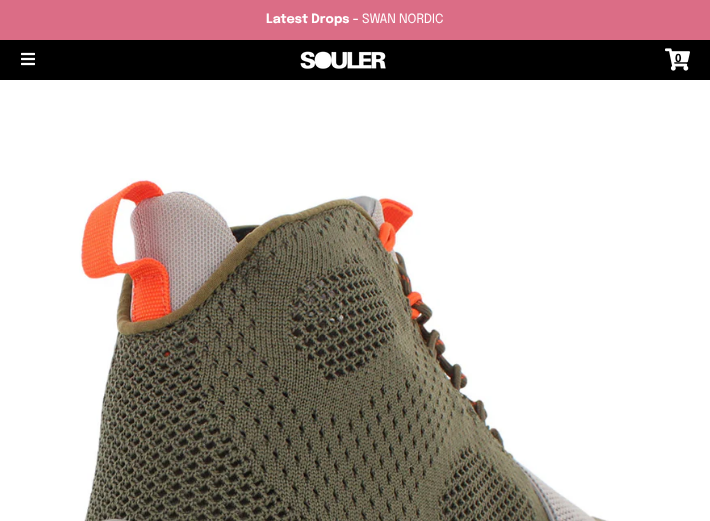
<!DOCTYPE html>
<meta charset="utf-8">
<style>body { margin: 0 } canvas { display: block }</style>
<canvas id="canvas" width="710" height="521"></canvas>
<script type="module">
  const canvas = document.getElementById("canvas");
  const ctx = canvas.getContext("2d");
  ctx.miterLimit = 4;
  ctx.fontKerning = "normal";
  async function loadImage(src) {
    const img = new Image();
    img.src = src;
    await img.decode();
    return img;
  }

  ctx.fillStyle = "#ffffff";
  ctx.fillRect(0, 0, 710, 521);
  ctx.fillStyle = "#db6d86";
  ctx.fillRect(0, 0, 710, 40);
  ctx.font = "bold 12.75px Epilogue";
  ctx.fillStyle = "#ffffff";
  ctx.fillText("Latest Drops -", 266, 23);
  ctx.font = "12.75px Epilogue";
  ctx.fillText("SWAN NORDIC", 362, 23);
  ctx.fillStyle = "#000000";
  ctx.fillRect(0, 40, 710, 40);
  ctx.drawImage(await loadImage("img1.png"), 21, 52, 14, 14);
  ctx.drawImage(await loadImage("img2.png"), 300, 51, 86, 18);
  ctx.drawImage(await loadImage("img3.png"), 665, 48, 25, 23);
  ctx.font = "bold 11px Epilogue";
  ctx.fillText("0", 675, 62);
  ctx.drawImage(await loadImage("img4.png"), 79, 178, 530, 343);
</script>
